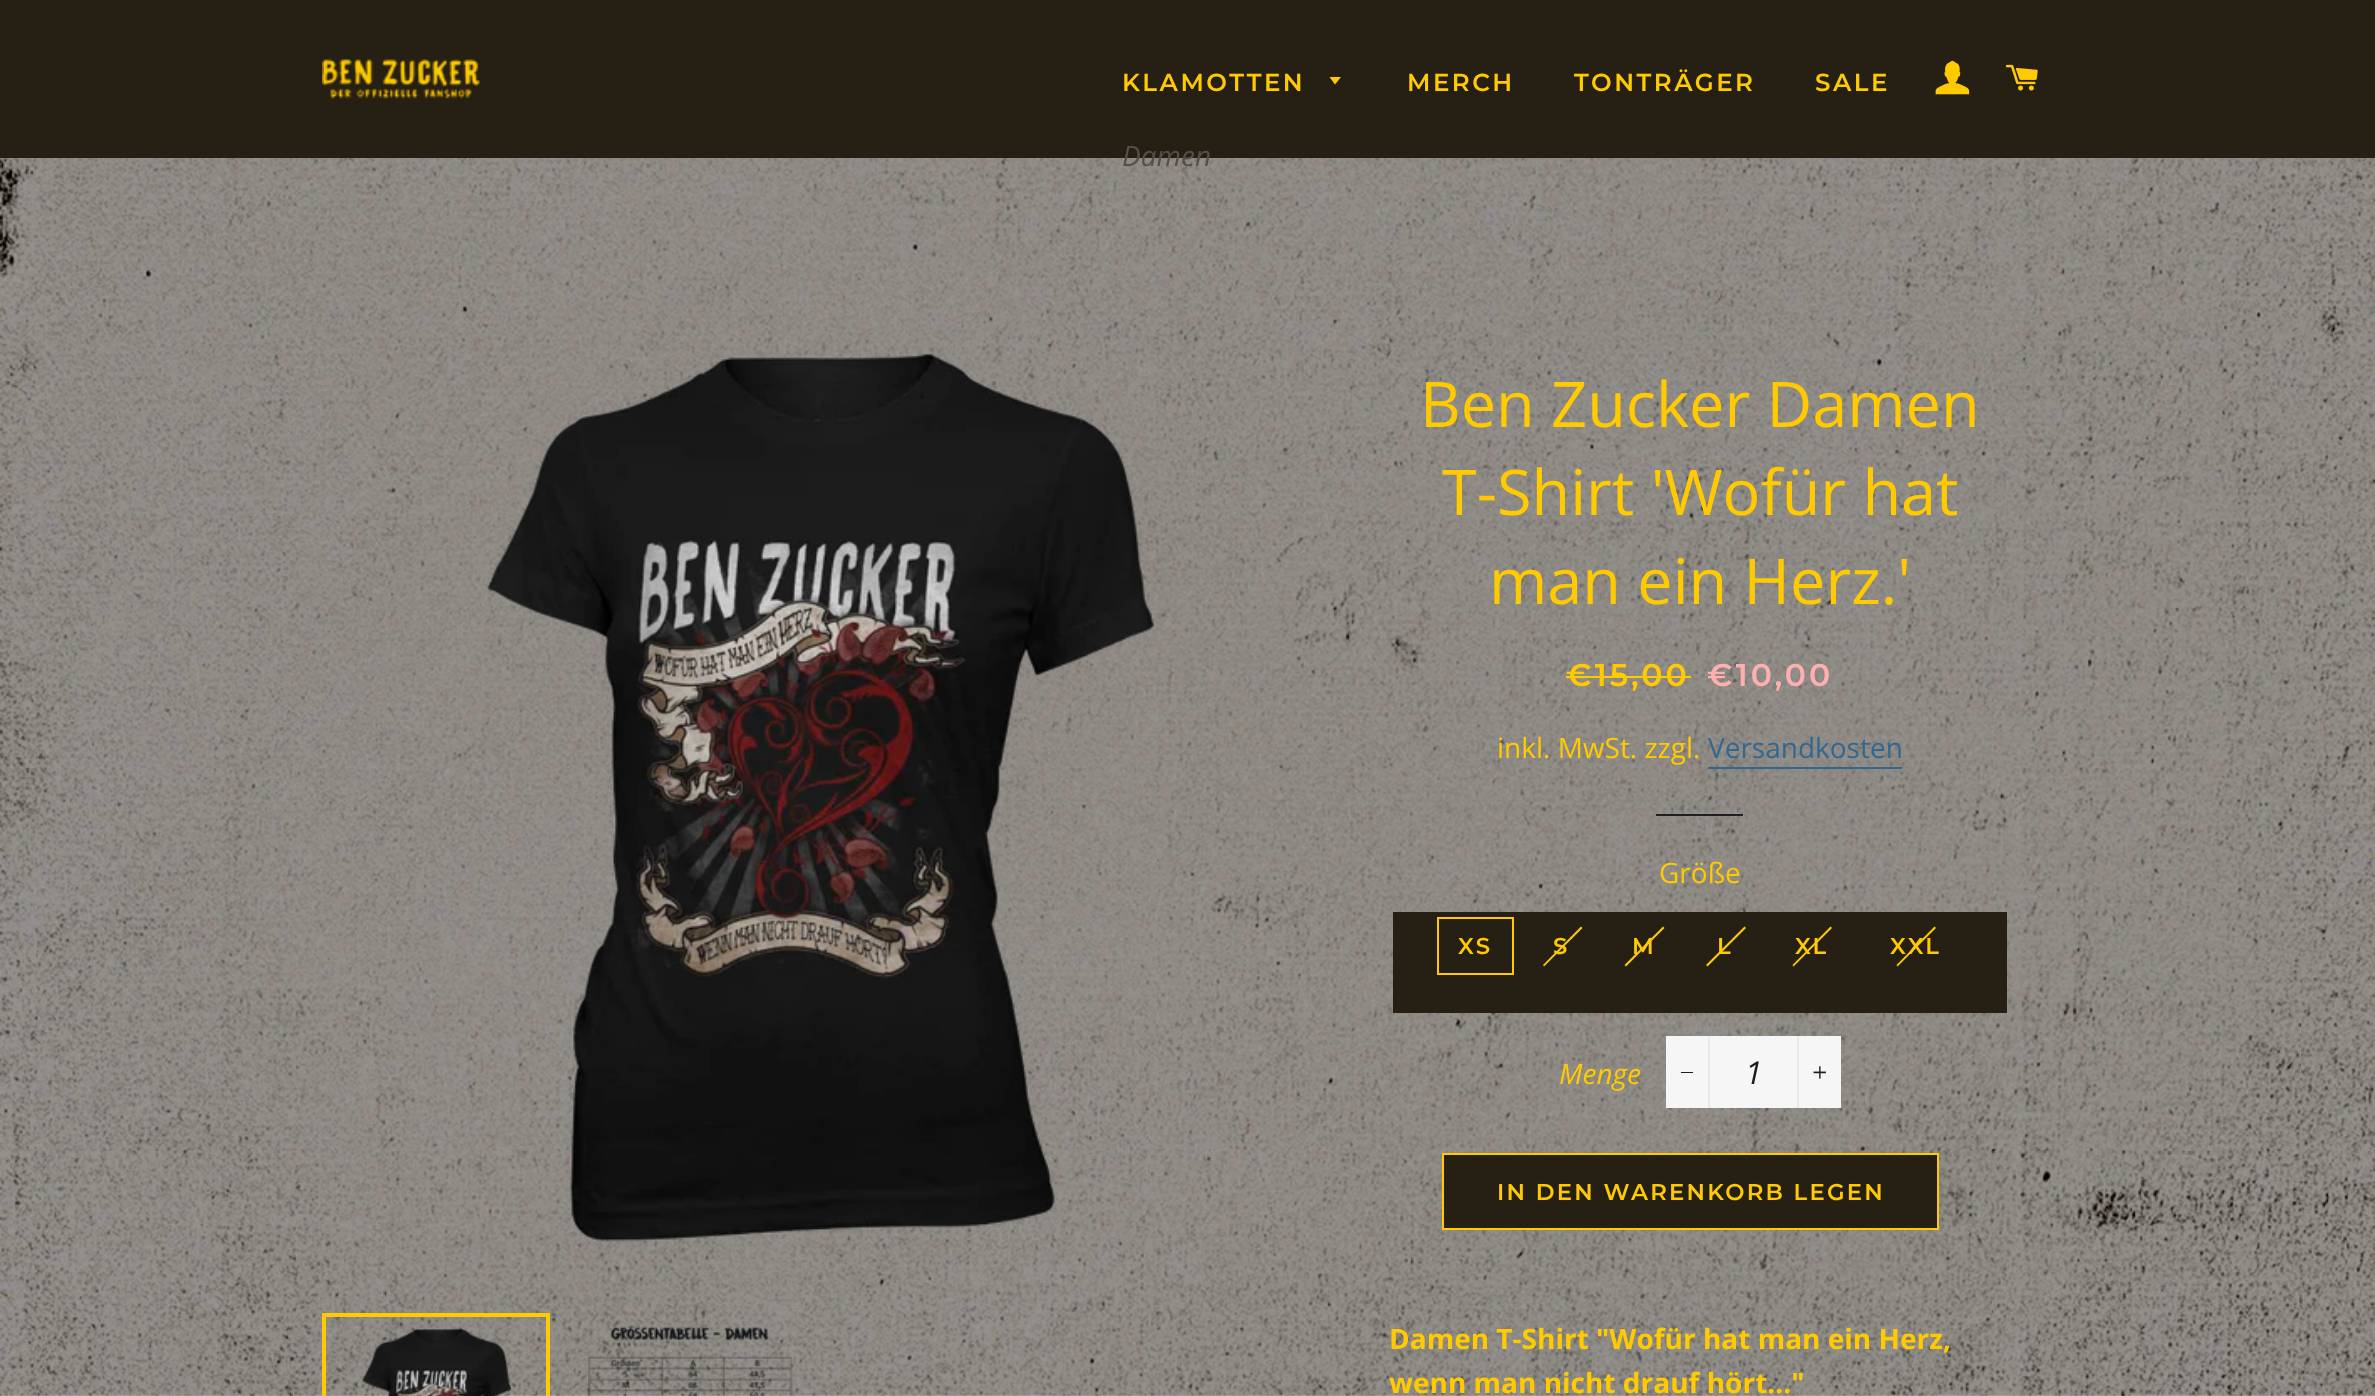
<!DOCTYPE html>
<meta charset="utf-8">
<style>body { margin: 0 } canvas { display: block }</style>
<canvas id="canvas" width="2375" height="1396"></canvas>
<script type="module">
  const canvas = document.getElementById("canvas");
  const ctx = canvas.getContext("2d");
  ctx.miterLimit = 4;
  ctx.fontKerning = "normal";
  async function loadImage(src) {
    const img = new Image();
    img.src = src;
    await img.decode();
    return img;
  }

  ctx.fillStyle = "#ffffff";
  ctx.fillRect(0, 0, 2375, 1396);
  ctx.drawImage(await loadImage("img1.png"), 0, 158, 2375, 1238);
  ctx.fillStyle = "#261f14";
  ctx.fillRect(0, 0, 2375, 158);
  ctx.drawImage(await loadImage("img2.png"), 322, 59, 158, 40);
  ctx.letterSpacing = "2.5px";
  ctx.font = "600 24.5px Montserrat";
  ctx.fillStyle = "#ffcb00";
  ctx.fillText("KLAMOTTEN", 1122, 91);
  ctx.beginPath();
  ctx.moveTo(1329.5, 77);
  ctx.lineTo(1335, 84.5);
  ctx.lineTo(1341, 77);
  ctx.closePath();
  ctx.fill();
  ctx.letterSpacing = "0px";
  ctx.font = "italic 28px Open Sans";
  ctx.fillStyle = "#554f47";
  ctx.fillText("Damen", 1122, 166);
  ctx.letterSpacing = "2.5px";
  ctx.font = "600 24.5px Montserrat";
  ctx.fillStyle = "#ffcb00";
  ctx.fillText("MERCH", 1407, 91);
  ctx.fillText("TONTRÄGER", 1574, 91);
  ctx.fillText("SALE", 1815, 91);
  ctx.drawImage(await loadImage("img3.png"), 1935, 60, 35, 35);
  ctx.drawImage(await loadImage("img4.png"), 2005, 64, 33, 27);
  ctx.drawImage(await loadImage("img5.png"), 486, 353, 669, 889);
  ctx.strokeStyle = "#ffcb00";
  ctx.lineWidth = 4;
  ctx.strokeRect(324, 1315, 224, 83);
  ctx.drawImage(await loadImage("img6.png"), 362, 1327, 150, 69);
  ctx.drawImage(await loadImage("img7.png"), 588, 1325, 205, 71);
  ctx.letterSpacing = "0px";
  ctx.font = "63px Open Sans";
  ctx.fillText("Ben Zucker Damen", 1420, 427);
  ctx.fillText("T-Shirt 'Wofür hat", 1442, 515);
  ctx.fillText("man ein Herz.'", 1489, 604);
  ctx.letterSpacing = "3px";
  ctx.font = "600 31.5px Montserrat";
  ctx.fillText("€15,00", 1566, 686);
  ctx.fillRect(1566, 676, 125, 2);
  ctx.fillStyle = "#ffafaf";
  ctx.fillText("€10,00", 1707, 686);
  ctx.letterSpacing = "0px";
  ctx.font = "28px Open Sans";
  ctx.fillStyle = "#ffcb00";
  ctx.fillText("inkl. MwSt. zzgl.", 1497, 758);
  ctx.fillStyle = "#326890";
  ctx.fillText("Versandkosten", 1708, 758);
  ctx.fillRect(1708, 767, 194, 2);
  ctx.fillStyle = "#1f2021";
  ctx.fillRect(1656, 814, 87, 2);
  ctx.fillStyle = "#ffcb00";
  ctx.fillText("Größe", 1659, 883);
  ctx.fillStyle = "#261f14";
  ctx.fillRect(1393, 912, 614, 101);
  ctx.lineWidth = 2;
  ctx.strokeRect(1438, 918, 75, 56);
  ctx.letterSpacing = "2.25px";
  ctx.font = "600 22.75px Montserrat";
  ctx.fillStyle = "#ffcb00";
  ctx.fillText("XS", 1458, 954);
  ctx.beginPath();
  ctx.moveTo(1581, 926.5);
  ctx.lineTo(1582.5, 928);
  ctx.lineTo(1544, 966.5);
  ctx.lineTo(1543, 965);
  ctx.closePath();
  ctx.fill();
  ctx.fillText("S", 1553, 954);
  ctx.beginPath();
  ctx.moveTo(1663, 926.5);
  ctx.lineTo(1664.5, 928);
  ctx.lineTo(1626, 966.5);
  ctx.lineTo(1624.5, 965);
  ctx.closePath();
  ctx.fill();
  ctx.fillText("M", 1632, 954);
  ctx.beginPath();
  ctx.moveTo(1744.5, 926.5);
  ctx.lineTo(1746, 928);
  ctx.lineTo(1707.5, 966.5);
  ctx.lineTo(1706, 965);
  ctx.closePath();
  ctx.fill();
  ctx.fillText("L", 1717, 954);
  ctx.beginPath();
  ctx.moveTo(1830.5, 926.5);
  ctx.lineTo(1832, 928);
  ctx.lineTo(1793.5, 966.5);
  ctx.lineTo(1792.5, 965);
  ctx.closePath();
  ctx.fill();
  ctx.fillText("XL", 1795, 954);
  ctx.beginPath();
  ctx.moveTo(1934.5, 926.5);
  ctx.lineTo(1936, 928);
  ctx.lineTo(1897.5, 966.5);
  ctx.lineTo(1896.5, 965);
  ctx.closePath();
  ctx.fill();
  ctx.fillText("XXL", 1890, 954);
  ctx.letterSpacing = "0px";
  ctx.font = "italic 28px Open Sans";
  ctx.fillText("Menge", 1559, 1084);
  ctx.fillStyle = "#f6f6f6";
  ctx.fillRect(1666, 1036, 175, 72);
  ctx.fillStyle = "#e9e9e9";
  ctx.fillRect(1708, 1036, 2, 72);
  ctx.fillStyle = "#1c1d1d";
  ctx.fillRect(1681, 1072, 12, 1);
  ctx.font = "italic 31.5px Open Sans";
  ctx.fillText("1", 1745, 1084);
  ctx.fillStyle = "#e9e9e9";
  ctx.fillRect(1797, 1036, 2, 72);
  ctx.drawImage(await loadImage("img8.png"), 1813, 1066, 13, 13);
  ctx.fillStyle = "#261f14";
  ctx.beginPath();
  ctx.rect(1443, 1154, 495, 75);
  ctx.fill();
  ctx.stroke();
  ctx.letterSpacing = "2.25px";
  ctx.font = "600 22.75px Montserrat";
  ctx.fillStyle = "#ffcb00";
  ctx.fillText("IN DEN WARENKORB LEGEN", 1497, 1200);
  ctx.letterSpacing = "0px";
  ctx.font = "bold 28px Open Sans";
  ctx.fillText("Damen T-Shirt \"Wofür hat man ein Herz,", 1389, 1349);
  ctx.fillText("wenn man nicht drauf hört...\"", 1389, 1393);
</script>
